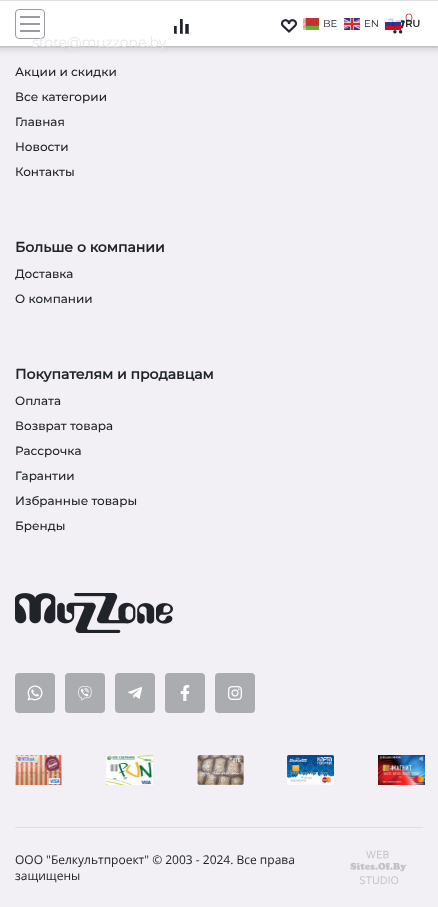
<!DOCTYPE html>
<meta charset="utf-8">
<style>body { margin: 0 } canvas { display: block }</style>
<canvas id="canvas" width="438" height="907"></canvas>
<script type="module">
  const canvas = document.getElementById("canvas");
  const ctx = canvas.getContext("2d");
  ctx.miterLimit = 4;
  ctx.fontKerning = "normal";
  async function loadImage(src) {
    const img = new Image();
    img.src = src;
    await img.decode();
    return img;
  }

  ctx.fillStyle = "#f2f0f4";
  ctx.fillRect(0, 0, 438, 907);
  ctx.fillStyle = "rgba(0, 0, 0, 0.1)";
  ctx.filter = "blur(2.5px)";
  ctx.beginPath();
  ctx.rect(-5, -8, 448, 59);
  ctx.fill();
  ctx.filter = "none";
  ctx.fillStyle = "#ffffff";
  ctx.fillRect(0, 1, 438, 45);
  ctx.save();
  ctx.beginPath();
  ctx.rect(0, 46, 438, 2);
  ctx.clip();
  ctx.fillStyle = "rgba(0, 0, 0, 0.17)";
  ctx.filter = "blur(1px)";
  ctx.beginPath();
  ctx.rect(0, 1, 438, 46);
  ctx.fill();
  ctx.filter = "none";
  ctx.restore();
  ctx.fillStyle = "#dfe0e2";
  ctx.fillRect(0, 0, 438, 1);
  ctx.beginPath();
  ctx.roundRect(15.5, 9.5, 29, 29, 3.5);
  ctx.strokeStyle = "#9d99a1";
  ctx.stroke();
  ctx.fillStyle = "#9d99a1";
  ctx.fillRect(20, 16, 20, 2);
  ctx.fillRect(20, 23, 20, 2);
  ctx.fillRect(20, 30, 20, 2);
  ctx.drawImage(await loadImage("img1.png"), 173, 18, 16, 16);
  ctx.drawImage(await loadImage("img2.png"), 280, 19, 18, 14);
  ctx.drawImage(await loadImage("img3.png"), 388, 18, 17, 16);
  ctx.font = "12px Montserrat";
  ctx.fillStyle = "#bb424b";
  ctx.fillText("0", 405, 22);
  ctx.font = "14px Montserrat";
  ctx.fillStyle = "#e7e7e8";
  ctx.fillText("store@muzzone.by", 32, 47);
  ctx.drawImage(await loadImage("img4.png"), 303, 18, 16, 12);
  ctx.font = "10px Montserrat";
  ctx.fillStyle = "#202329";
  ctx.fillText("BE", 323, 27);
  ctx.drawImage(await loadImage("img5.png"), 344, 18, 16, 12);
  ctx.fillText("EN", 364, 27);
  ctx.font = "bold 10px Montserrat";
  ctx.fillText("RU", 405, 27);
  ctx.fillStyle = "rgba(255, 255, 255, 0.8)";
  ctx.fillRect(388, 18, 13, 11);
  ctx.fillStyle = "rgba(1, 1, 126, 0.8)";
  ctx.fillRect(385, 22, 16, 8);
  ctx.fillStyle = "rgba(254, 1, 1, 0.8)";
  ctx.fillRect(385, 26, 16, 4);
  ctx.font = "500 12px Montserrat";
  ctx.fillStyle = "#202329";
  ctx.fillText("Акции и скидки", 15, 76);
  ctx.fillText("Все категории", 15, 101);
  ctx.fillText("Главная", 15, 126);
  ctx.fillText("Новости", 15, 151);
  ctx.fillText("Контакты", 15, 176);
  ctx.font = "bold 14px Montserrat";
  ctx.fillText("Больше о компании", 15, 252);
  ctx.font = "500 12px Montserrat";
  ctx.fillText("Доставка", 15, 278);
  ctx.fillText("О компании", 15, 303);
  ctx.font = "bold 14px Montserrat";
  ctx.fillText("Покупателям и продавцам", 15, 379);
  ctx.font = "500 12px Montserrat";
  ctx.fillText("Оплата", 15, 405);
  ctx.fillText("Возврат товара", 15, 430);
  ctx.fillText("Рассрочка", 15, 455);
  ctx.fillText("Гарантии", 15, 480);
  ctx.fillText("Избранные товары", 15, 505);
  ctx.fillText("Бренды", 15, 530);
  ctx.drawImage(await loadImage("img6.png"), 15, 593, 158, 40);
  ctx.fillStyle = "#abacaf";
  ctx.beginPath();
  ctx.roundRect(15, 673, 40, 40, 4);
  ctx.fill();
  ctx.drawImage(await loadImage("img7.png"), 27, 685, 16, 16);
  ctx.beginPath();
  ctx.roundRect(65, 673, 40, 40, 4);
  ctx.fill();
  ctx.drawImage(await loadImage("img8.png"), 78, 686, 14, 15);
  ctx.beginPath();
  ctx.roundRect(115, 673, 40, 40, 4);
  ctx.fill();
  ctx.drawImage(await loadImage("img9.png"), 128, 687, 14, 12);
  ctx.beginPath();
  ctx.roundRect(165, 673, 40, 40, 4);
  ctx.fill();
  ctx.drawImage(await loadImage("img10.png"), 180, 685, 10, 16);
  ctx.beginPath();
  ctx.roundRect(215, 673, 40, 40, 4);
  ctx.fill();
  ctx.drawImage(await loadImage("img11.png"), 228, 686, 14, 14);
  ctx.drawImage(await loadImage("img12.png"), 15, 755, 47, 30);
  ctx.drawImage(await loadImage("img13.png"), 106, 755, 47, 30);
  ctx.drawImage(await loadImage("img14.png"), 197, 755, 47, 30);
  ctx.drawImage(await loadImage("img15.png"), 287, 755, 47, 30);
  ctx.drawImage(await loadImage("img16.png"), 378, 755, 47, 30);
  ctx.fillStyle = "#dfe0e2";
  ctx.fillRect(15, 827, 408, 1);
  ctx.font = "12px Open Sans";
  ctx.fillStyle = "#202329";
  ctx.fillText("ООО \"Белкультпроект\" © 2003 - 2024. Все права", 15, 864);
  ctx.fillText("защищены", 15, 880);
  ctx.drawImage(await loadImage("img17.png"), 350, 850, 57, 35);
</script>
